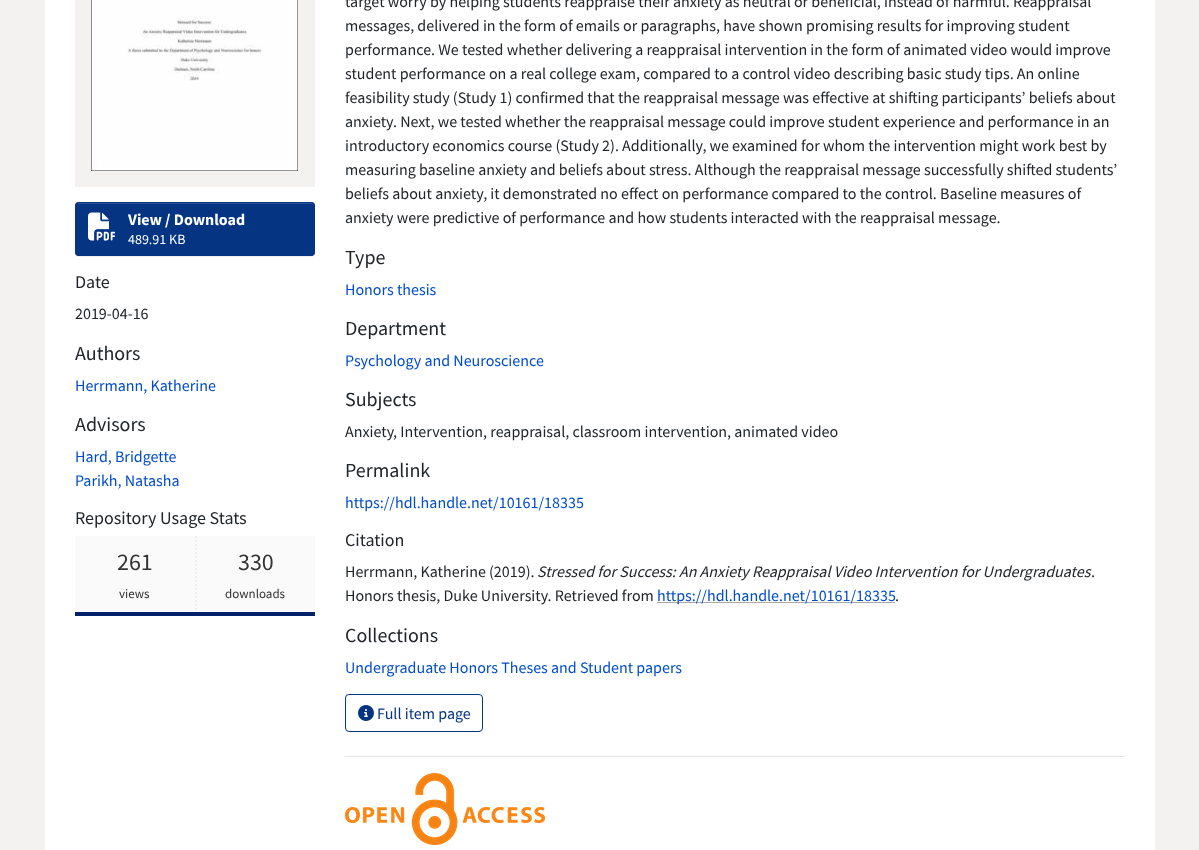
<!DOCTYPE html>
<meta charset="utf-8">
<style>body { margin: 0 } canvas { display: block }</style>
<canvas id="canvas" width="1199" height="850"></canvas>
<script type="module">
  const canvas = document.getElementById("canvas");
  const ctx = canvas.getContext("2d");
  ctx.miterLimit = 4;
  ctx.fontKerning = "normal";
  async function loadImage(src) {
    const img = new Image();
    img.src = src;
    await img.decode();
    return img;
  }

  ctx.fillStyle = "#f3f2f1";
  ctx.fillRect(0, 0, 1199, 850);
  ctx.fillStyle = "#ffffff";
  ctx.fillRect(45, 0, 1110, 850);
  ctx.fillStyle = "#f3f2f1";
  ctx.fillRect(75, 0, 240, 187);
  ctx.drawImage(await loadImage("img1.png"), 91, 0, 207, 171);
  ctx.fillStyle = "rgba(0, 0, 0, 0.07)";
  ctx.filter = "blur(0.5px)";
  ctx.beginPath();
  ctx.roundRect(75, 203, 240, 54, 4);
  ctx.fill();
  ctx.filter = "none";
  ctx.fillStyle = "#053482";
  ctx.beginPath();
  ctx.roundRect(75, 202, 240, 54, 4);
  ctx.fill();
  ctx.fillStyle = "#2b5295";
  ctx.beginPath();
  ctx.moveTo(79, 204);
  ctx.lineTo(312, 204);
  ctx.lineTo(314, 205);
  ctx.lineTo(314, 207);
  ctx.bezierCurveTo(314, 205, 313, 203, 311, 203);
  ctx.lineTo(79, 203);
  ctx.bezierCurveTo(77, 203, 76, 205, 76, 207);
  ctx.bezierCurveTo(76, 205, 77, 204, 79, 204);
  ctx.closePath();
  ctx.fill();
  ctx.beginPath();
  ctx.roundRect(75.5, 202.5, 239, 53, 3.5);
  ctx.strokeStyle = "#053482";
  ctx.stroke();
  ctx.drawImage(await loadImage("img2.png"), 88, 212, 28, 29);
  ctx.font = "bold 16px Source Sans Pro";
  ctx.fillStyle = "#ffffff";
  ctx.fillText("View / Download", 128, 225);
  ctx.font = "14px Source Sans Pro";
  ctx.fillText("489.91 KB", 128, 244);
  ctx.font = "18px Source Sans Pro";
  ctx.fillStyle = "#212529";
  ctx.fillText("Date", 75, 288);
  ctx.font = "16px Source Sans Pro";
  ctx.fillText("2019-04-16", 75, 319);
  ctx.font = "20px Source Sans Pro";
  ctx.fillText("Authors", 75, 360);
  ctx.font = "16px Source Sans Pro";
  ctx.fillStyle = "#004ccc";
  ctx.fillText("Herrmann, Katherine", 75, 391);
  ctx.font = "20px Source Sans Pro";
  ctx.fillStyle = "#212529";
  ctx.fillText("Advisors", 75, 431);
  ctx.font = "16px Source Sans Pro";
  ctx.fillStyle = "#004ccc";
  ctx.fillText("Hard, Bridgette", 75, 462);
  ctx.fillText("Parikh, Natasha", 75, 486);
  ctx.font = "18px Source Sans Pro";
  ctx.fillStyle = "#212529";
  ctx.fillText("Repository Usage Stats", 75, 524);
  ctx.fillStyle = "#fafafa";
  ctx.fillRect(75, 536, 240, 76);
  ctx.fillStyle = "#012169";
  ctx.fillRect(75, 612, 240, 4);
  ctx.font = "24px Source Sans Pro";
  ctx.fillStyle = "#333333";
  ctx.fillText("261", 117, 570);
  ctx.font = "13px Source Sans Pro";
  ctx.fillText("views", 119, 598);
  ctx.beginPath();
  ctx.moveTo(196, 536);
  ctx.lineTo(196, 612);
  ctx.strokeStyle = "#eeeeee";
  ctx.lineWidth = 2;
  ctx.setLineDash([2, 2]);
  ctx.stroke();
  ctx.font = "24px Source Sans Pro";
  ctx.fillText("330", 238, 570);
  ctx.font = "13px Source Sans Pro";
  ctx.fillText("downloads", 225, 598);
  ctx.font = "16px Source Sans Pro";
  ctx.fillStyle = "#212529";
  ctx.fillText("target worry by helping students reappraise their anxiety as neutral or beneficial, instead of harmful. Reappraisal", 345, 7);
  ctx.fillText("messages, delivered in the form of emails or paragraphs, have shown promising results for improving student", 345, 31);
  ctx.fillText("performance. We tested whether delivering a reappraisal intervention in the form of animated video would improve", 345, 55);
  ctx.fillText("student performance on a real college exam, compared to a control video describing basic study tips. An online", 345, 79);
  ctx.fillText("feasibility study (Study 1) confirmed that the reappraisal message was effective at shifting participants’ beliefs about", 345, 103);
  ctx.fillText("anxiety. Next, we tested whether the reappraisal message could improve student experience and performance in an", 345, 127);
  ctx.fillText("introductory economics course (Study 2). Additionally, we examined for whom the intervention might work best by", 345, 151);
  ctx.fillText("measuring baseline anxiety and beliefs about stress. Although the reappraisal message successfully shifted students’", 345, 175);
  ctx.fillText("beliefs about anxiety, it demonstrated no effect on performance compared to the control. Baseline measures of", 345, 199);
  ctx.fillText("anxiety were predictive of performance and how students interacted with the reappraisal message.", 345, 223);
  ctx.font = "20px Source Sans Pro";
  ctx.fillText("Type", 345, 264);
  ctx.font = "16px Source Sans Pro";
  ctx.fillStyle = "#004ccc";
  ctx.fillText("Honors thesis", 345, 295);
  ctx.font = "20px Source Sans Pro";
  ctx.fillStyle = "#212529";
  ctx.fillText("Department", 345, 335);
  ctx.font = "16px Source Sans Pro";
  ctx.fillStyle = "#004ccc";
  ctx.fillText("Psychology and Neuroscience", 345, 366);
  ctx.font = "20px Source Sans Pro";
  ctx.fillStyle = "#212529";
  ctx.fillText("Subjects", 345, 406);
  ctx.font = "16px Source Sans Pro";
  ctx.fillText("Anxiety", 345, 437);
  ctx.fillText(", Intervention, reappraisal, classroom intervention, animated video", 393, 437);
  ctx.font = "20px Source Sans Pro";
  ctx.fillText("Permalink", 345, 477);
  ctx.font = "16px Source Sans Pro";
  ctx.fillStyle = "#004ccc";
  ctx.fillText("https://hdl.handle.net/10161/18335", 345, 508);
  ctx.font = "18px Source Sans Pro";
  ctx.fillStyle = "#212529";
  ctx.fillText("Citation", 345, 546);
  ctx.font = "16px Source Sans Pro";
  ctx.fillText("Herrmann, Katherine (2019).", 345, 577);
  ctx.font = "italic 16px Source Sans Pro";
  ctx.fillText("Stressed for Success: An Anxiety Reappraisal Video Intervention for Undergraduates", 537, 577);
  ctx.font = "16px Source Sans Pro";
  ctx.fillText(".", 1091, 577);
  ctx.fillText("Honors thesis, Duke University. Retrieved from", 345, 601);
  ctx.fillStyle = "#aaaaaa";
  ctx.fillRect(657, 602, 238, 1);
  ctx.fillStyle = "#004ccc";
  ctx.fillText("https://hdl.handle.net/10161/18335", 657, 601);
  ctx.fillStyle = "#212529";
  ctx.fillText(".", 895, 601);
  ctx.font = "20px Source Sans Pro";
  ctx.fillText("Collections", 345, 642);
  ctx.font = "16px Source Sans Pro";
  ctx.fillStyle = "#004ccc";
  ctx.fillText("Undergraduate Honors Theses and Student papers", 345, 673);
  ctx.beginPath();
  ctx.roundRect(345.5, 694.5, 137, 37, 3.5);
  ctx.strokeStyle = "#053482";
  ctx.lineWidth = 1;
  ctx.setLineDash([]);
  ctx.stroke();
  ctx.drawImage(await loadImage("img3.png"), 358, 705, 16, 16);
  ctx.fillStyle = "#053482";
  ctx.fillText("Full item page", 377, 719);
  ctx.fillStyle = "#e6e6e6";
  ctx.fillRect(345, 756, 780, 1);
  ctx.drawImage(await loadImage("img4.png"), 345, 773, 200, 72);
</script>
